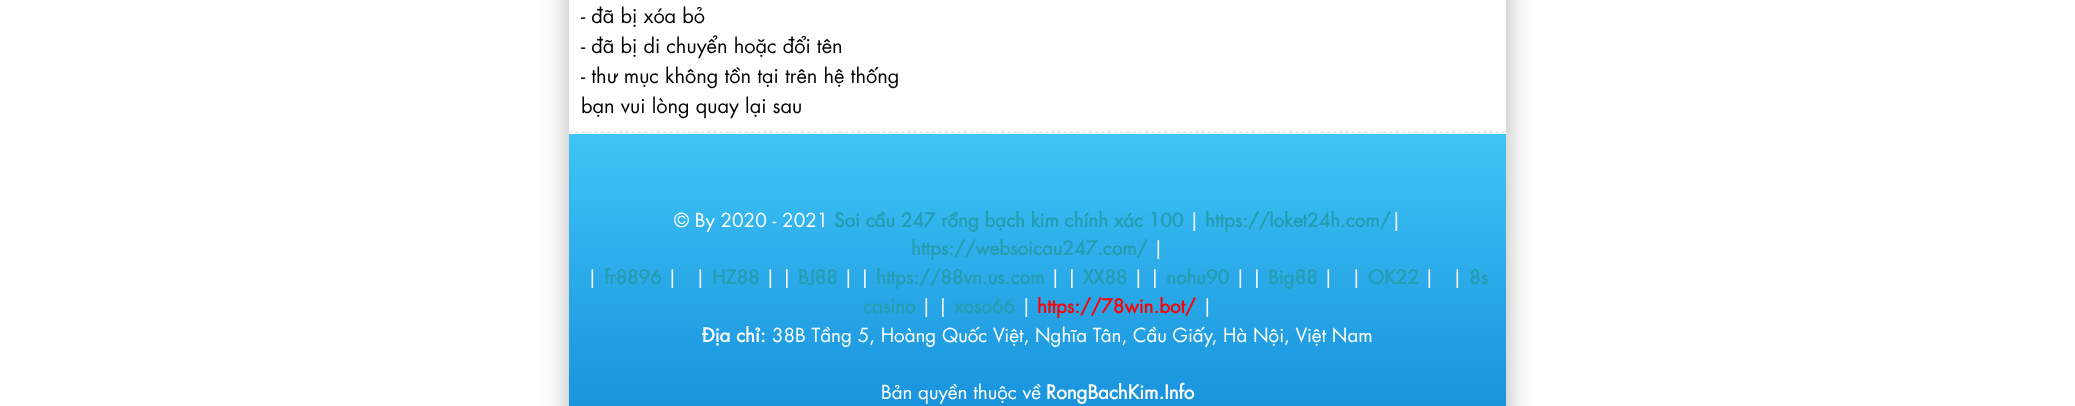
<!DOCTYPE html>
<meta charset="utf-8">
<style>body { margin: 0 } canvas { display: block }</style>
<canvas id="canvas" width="2075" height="406"></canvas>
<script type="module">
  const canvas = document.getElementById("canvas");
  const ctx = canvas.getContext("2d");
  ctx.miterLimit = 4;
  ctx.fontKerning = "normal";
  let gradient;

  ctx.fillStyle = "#ffffff";
  ctx.fillRect(0, 0, 2075, 406);
  ctx.save();
  ctx.beginPath();
  ctx.moveTo(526, 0);
  ctx.lineTo(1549, 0);
  ctx.lineTo(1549, 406);
  ctx.lineTo(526, 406);
  ctx.closePath();
  ctx.moveTo(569, -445);
  ctx.lineTo(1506, -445);
  ctx.lineTo(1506, 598);
  ctx.lineTo(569, 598);
  ctx.closePath();
  ctx.clip("evenodd");
  ctx.fillStyle = "rgba(0, 0, 0, 0.3)";
  ctx.filter = "blur(14px)";
  ctx.beginPath();
  ctx.rect(569, -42, 937, 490);
  ctx.fill();
  ctx.filter = "none";
  ctx.restore();
  ctx.beginPath();
  ctx.moveTo(569, 132);
  ctx.lineTo(1506, 132);
  ctx.strokeStyle = "#d5d5d5";
  ctx.lineWidth = 1.2;
  ctx.setLineDash([3.75, 2.51]);
  ctx.stroke();
  ctx.font = "20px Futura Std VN";
  ctx.fillStyle = "#000000";
  ctx.fillText("- đã bị xóa bỏ", 581, 23);
  ctx.fillText("- đã bị di chuyển hoặc đổi tên", 581, 53);
  ctx.fillText("- thư mục không tồn tại trên hệ thống", 581, 83);
  ctx.fillText("bạn vui lòng quay lại sau", 581, 113);
  gradient = ctx.createLinearGradient(1038, 134, 1038, 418);
  gradient.addColorStop(0, "#3fc4f6");
  gradient.addColorStop(1, "#1791dc");
  ctx.fillStyle = gradient;
  ctx.fillRect(569, 134, 937, 272);
  ctx.font = "18.75px Futura Std VN";
  ctx.fillStyle = "#ffffff";
  ctx.fillText("© By 2020 - 2021", 674, 227);
  ctx.font = "bold 18.75px Futura Std VN";
  ctx.fillStyle = "#239eb1";
  ctx.fillText("Soi cầu 247 rồng bạch kim chính xác 100", 834, 227);
  ctx.font = "18.75px Futura Std VN";
  ctx.fillStyle = "#ffffff";
  ctx.fillText("|", 1189, 227);
  ctx.font = "bold 18.75px Futura Std VN";
  ctx.fillStyle = "#239eb1";
  ctx.fillText("https://loket24h.com/", 1205, 227);
  ctx.font = "18.75px Futura Std VN";
  ctx.fillStyle = "#ffffff";
  ctx.fillText("|", 1391, 227);
  ctx.font = "bold 18.75px Futura Std VN";
  ctx.fillStyle = "#239eb1";
  ctx.fillText("https://websoicau247.com/", 911, 255);
  ctx.font = "18.75px Futura Std VN";
  ctx.fillStyle = "#ffffff";
  ctx.fillText("|", 1153, 255);
  ctx.fillText("|", 587, 284);
  ctx.font = "bold 18.75px Futura Std VN";
  ctx.fillStyle = "#239eb1";
  ctx.fillText("fr8896", 604, 284);
  ctx.font = "18.75px Futura Std VN";
  ctx.fillStyle = "#ffffff";
  ctx.fillText("|", 667, 284);
  ctx.fillText("|", 695, 284);
  ctx.font = "bold 18.75px Futura Std VN";
  ctx.fillStyle = "#239eb1";
  ctx.fillText("HZ88", 712, 284);
  ctx.font = "18.75px Futura Std VN";
  ctx.fillStyle = "#ffffff";
  ctx.fillText("| |", 765, 284);
  ctx.font = "bold 18.75px Futura Std VN";
  ctx.fillStyle = "#239eb1";
  ctx.fillText("BJ88", 798, 284);
  ctx.font = "18.75px Futura Std VN";
  ctx.fillStyle = "#ffffff";
  ctx.fillText("| |", 843, 284);
  ctx.font = "bold 18.75px Futura Std VN";
  ctx.fillStyle = "#239eb1";
  ctx.fillText("https://88vn.us.com", 876, 284);
  ctx.font = "18.75px Futura Std VN";
  ctx.fillStyle = "#ffffff";
  ctx.fillText("| |", 1050, 284);
  ctx.font = "bold 18.75px Futura Std VN";
  ctx.fillStyle = "#239eb1";
  ctx.fillText("XX88", 1083, 284);
  ctx.font = "18.75px Futura Std VN";
  ctx.fillStyle = "#ffffff";
  ctx.fillText("| |", 1133, 284);
  ctx.font = "bold 18.75px Futura Std VN";
  ctx.fillStyle = "#239eb1";
  ctx.fillText("nohu90", 1166, 284);
  ctx.font = "18.75px Futura Std VN";
  ctx.fillStyle = "#ffffff";
  ctx.fillText("| |", 1235, 284);
  ctx.font = "bold 18.75px Futura Std VN";
  ctx.fillStyle = "#239eb1";
  ctx.fillText("Big88", 1268, 284);
  ctx.font = "18.75px Futura Std VN";
  ctx.fillStyle = "#ffffff";
  ctx.fillText("|", 1323, 284);
  ctx.fillText("|", 1351, 284);
  ctx.font = "bold 18.75px Futura Std VN";
  ctx.fillStyle = "#239eb1";
  ctx.fillText("OK22", 1368, 284);
  ctx.font = "18.75px Futura Std VN";
  ctx.fillStyle = "#ffffff";
  ctx.fillText("|", 1424, 284);
  ctx.fillText("|", 1452, 284);
  ctx.font = "bold 18.75px Futura Std VN";
  ctx.fillStyle = "#239eb1";
  ctx.fillText("8s", 1469, 284);
  ctx.fillText("casino", 863, 313);
  ctx.font = "18.75px Futura Std VN";
  ctx.fillStyle = "#ffffff";
  ctx.fillText("| |", 921, 313);
  ctx.font = "bold 18.75px Futura Std VN";
  ctx.fillStyle = "#239eb1";
  ctx.fillText("xoso66", 954, 313);
  ctx.font = "18.75px Futura Std VN";
  ctx.fillStyle = "#ffffff";
  ctx.fillText("|", 1021, 313);
  ctx.font = "bold 18.75px Futura Std VN";
  ctx.fillStyle = "#ff0000";
  ctx.fillText("https://78win.bot/", 1037, 313);
  ctx.font = "18.75px Futura Std VN";
  ctx.fillStyle = "#ffffff";
  ctx.fillText("|", 1202, 313);
  ctx.font = "bold 18.75px Futura Std VN";
  ctx.fillText("Địa chỉ:", 702, 342);
  ctx.font = "18.75px Futura Std VN";
  ctx.fillText("38B Tầng 5, Hoàng Quốc Việt, Nghĩa Tân, Cầu Giấy, Hà Nội, Việt Nam", 772, 342);
  ctx.fillText("Bản quyền thuộc về", 881, 399);
  ctx.font = "bold 18.75px Futura Std VN";
  ctx.fillText("RongBachKim.Info", 1046, 399);
</script>
